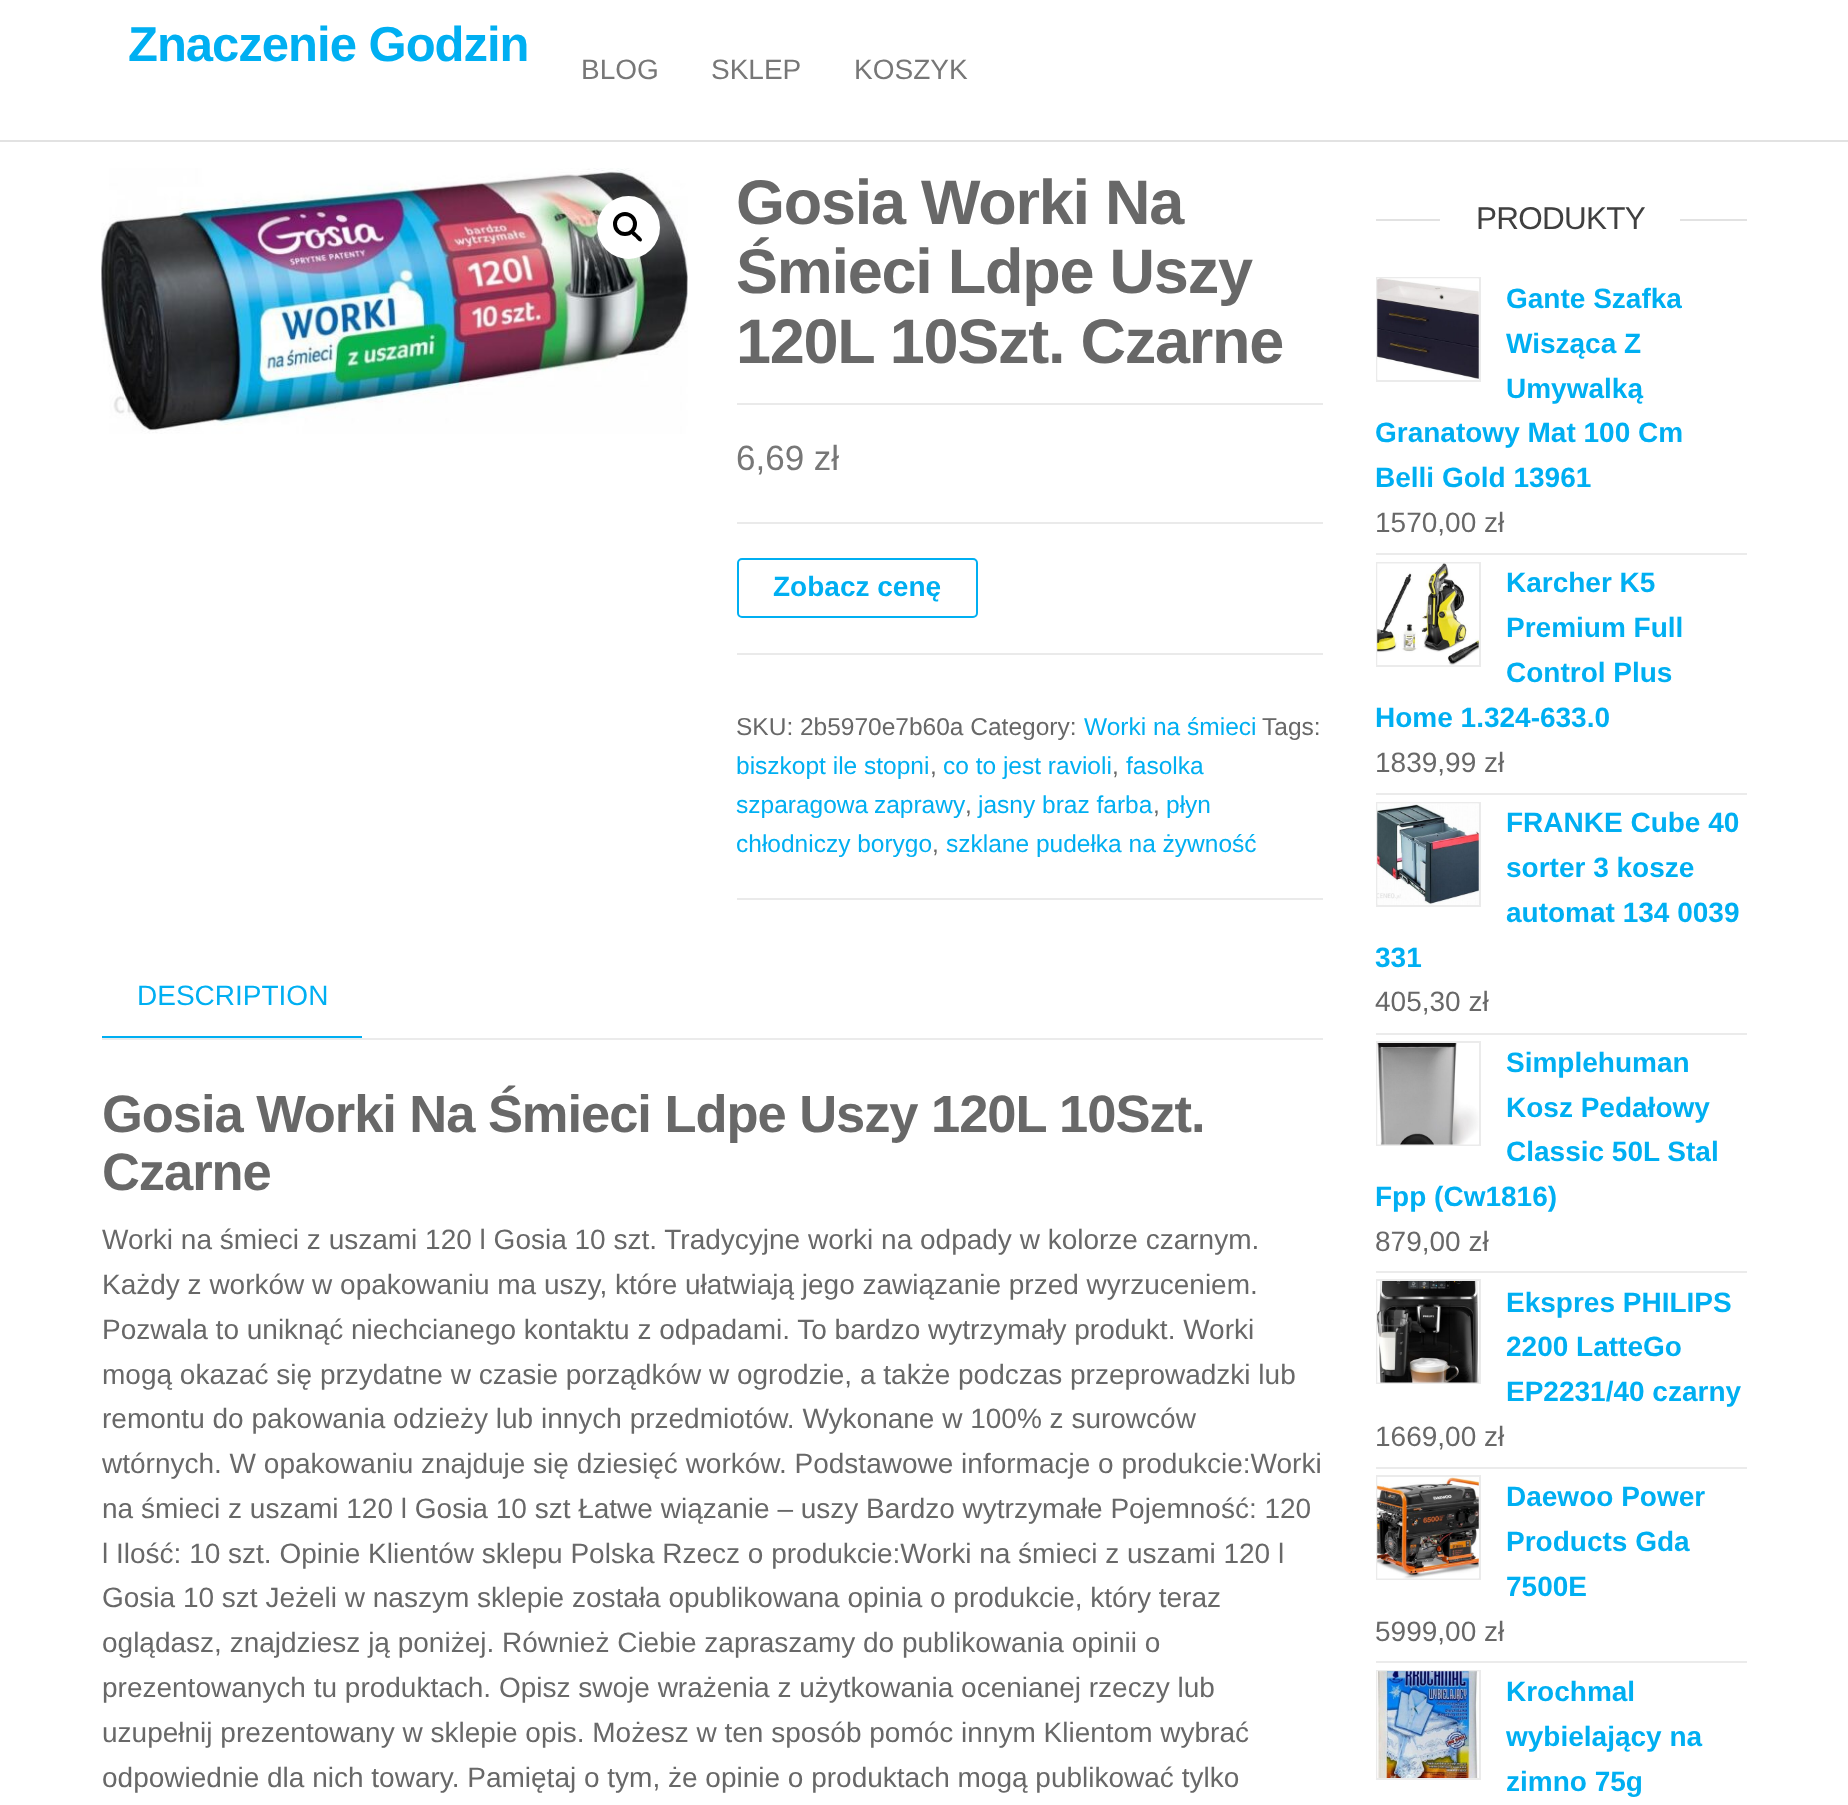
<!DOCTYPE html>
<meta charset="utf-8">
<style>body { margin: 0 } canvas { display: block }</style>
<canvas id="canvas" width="1848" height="1805"></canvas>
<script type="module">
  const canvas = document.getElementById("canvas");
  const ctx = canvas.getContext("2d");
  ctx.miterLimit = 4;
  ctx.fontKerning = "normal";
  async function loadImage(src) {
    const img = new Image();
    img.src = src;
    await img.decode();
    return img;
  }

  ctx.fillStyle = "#ffffff";
  ctx.fillRect(0, 0, 1848, 1805);
  ctx.fillStyle = "#e2e2e2";
  ctx.fillRect(0, 140, 1848, 2);
  ctx.letterSpacing = "-1px";
  ctx.font = "bold 49px Liberation Sans";
  ctx.fillStyle = "#00aff2";
  ctx.fillText("Znaczenie Godzin", 128, 61);
  ctx.letterSpacing = "0px";
  ctx.font = "28px Liberation Sans";
  ctx.fillStyle = "#777777";
  ctx.fillText("BLOG", 581, 79);
  ctx.fillText("SKLEP", 711, 79);
  ctx.fillText("KOSZYK", 854, 79);
  ctx.drawImage(await loadImage("img1.png"), 101, 168, 587, 266);
  ctx.fillStyle = "#ffffff";
  ctx.beginPath();
  ctx.arc(628.5, 227.5, 31.5, 0, Math.PI * 2);
  ctx.fill();
  ctx.beginPath();
  ctx.arc(625, 224, 10, 0, Math.PI * 2);
  ctx.strokeStyle = "#000000";
  ctx.lineWidth = 4;
  ctx.stroke();
  ctx.fillStyle = "#000000";
  ctx.beginPath();
  ctx.moveTo(631.5, 231.5);
  ctx.bezierCurveTo(633.5, 229.5, 637, 234, 638, 235);
  ctx.bezierCurveTo(639, 236, 643.5, 239, 641.5, 241);
  ctx.bezierCurveTo(639.5, 243, 636.5, 238.5, 635.5, 237.5);
  ctx.bezierCurveTo(634.5, 236.5, 629.5, 233.5, 631.5, 231.5);
  ctx.closePath();
  ctx.fill();
  ctx.fillStyle = "#eaeaea";
  ctx.fillRect(737, 403, 586, 2);
  ctx.letterSpacing = "-1.25px";
  ctx.font = "bold 63px Liberation Sans";
  ctx.fillStyle = "#686868";
  ctx.fillText("Gosia Worki Na", 736, 224);
  ctx.fillText("Śmieci Ldpe Uszy", 736, 293);
  ctx.fillText("120L 10Szt. Czarne", 736, 363);
  ctx.letterSpacing = "0px";
  ctx.font = "35px Liberation Sans";
  ctx.fillStyle = "#777777";
  ctx.fillText("6,69 zł", 736, 470);
  ctx.fillStyle = "#eaeaea";
  ctx.fillRect(737, 522, 586, 2);
  ctx.fillRect(737, 653, 586, 2);
  ctx.beginPath();
  ctx.roundRect(738, 559, 239, 58, 4);
  ctx.strokeStyle = "#00aff2";
  ctx.lineWidth = 2;
  ctx.stroke();
  ctx.font = "bold 28px Liberation Sans";
  ctx.fillStyle = "#00aff2";
  ctx.fillText("Zobacz cenę", 773, 596);
  ctx.fillStyle = "#eaeaea";
  ctx.fillRect(737, 898, 586, 2);
  ctx.font = "24.5px Liberation Sans";
  ctx.fillStyle = "#686868";
  ctx.fillText("SKU: 2b5970e7b60a Category:", 736, 735);
  ctx.fillStyle = "#00aff2";
  ctx.fillText("Worki na śmieci", 1084, 735);
  ctx.fillStyle = "#686868";
  ctx.fillText("Tags:", 1262, 735);
  ctx.fillStyle = "#00aff2";
  ctx.fillText("biszkopt ile stopni", 736, 774);
  ctx.fillStyle = "#686868";
  ctx.fillText(",", 930, 774);
  ctx.fillStyle = "#00aff2";
  ctx.fillText("co to jest ravioli", 943, 774);
  ctx.fillStyle = "#686868";
  ctx.fillText(",", 1112, 774);
  ctx.fillStyle = "#00aff2";
  ctx.fillText("fasolka", 1126, 774);
  ctx.wordSpacing = "-1px";
  ctx.fillText("szparagowa zaprawy", 736, 813);
  ctx.wordSpacing = "0px";
  ctx.fillStyle = "#686868";
  ctx.fillText(",", 965, 813);
  ctx.fillStyle = "#00aff2";
  ctx.fillText("jasny braz farba", 978, 813);
  ctx.fillStyle = "#686868";
  ctx.fillText(",", 1153, 813);
  ctx.fillStyle = "#00aff2";
  ctx.fillText("płyn", 1166, 813);
  ctx.fillText("chłodniczy borygo", 736, 852);
  ctx.fillStyle = "#686868";
  ctx.fillText(",", 932, 852);
  ctx.fillStyle = "#00aff2";
  ctx.fillText("szklane pudełka na żywność", 946, 852);
  ctx.fillStyle = "#ebebeb";
  ctx.fillRect(102, 1038, 1221, 2);
  ctx.fillStyle = "#00aff2";
  ctx.fillRect(102, 1036, 260, 2);
  ctx.font = "28px Liberation Sans";
  ctx.fillText("DESCRIPTION", 137, 1005);
  ctx.letterSpacing = "-1.05px";
  ctx.font = "bold 52.5px Liberation Sans";
  ctx.fillStyle = "#686868";
  ctx.fillText("Gosia Worki Na Śmieci Ldpe Uszy 120L 10Szt.", 102, 1132);
  ctx.fillText("Czarne", 102, 1190);
  ctx.letterSpacing = "0px";
  ctx.font = "28px Liberation Sans";
  ctx.fillText("Worki na śmieci z uszami 120 l Gosia 10 szt. Tradycyjne worki na odpady w kolorze czarnym.", 102, 1249);
  ctx.fillText("Każdy z worków w opakowaniu ma uszy, które ułatwiają jego zawiązanie przed wyrzuceniem.", 102, 1294);
  ctx.fillText("Pozwala to uniknąć niechcianego kontaktu z odpadami. To bardzo wytrzymały produkt. Worki", 102, 1339);
  ctx.fillText("mogą okazać się przydatne w czasie porządków w ogrodzie, a także podczas przeprowadzki lub", 102, 1384);
  ctx.fillText("remontu do pakowania odzieży lub innych przedmiotów. Wykonane w 100% z surowców", 102, 1428);
  ctx.fillText("wtórnych. W opakowaniu znajduje się dziesięć worków. Podstawowe informacje o produkcie:Worki", 102, 1473);
  ctx.fillText("na śmieci z uszami 120 l Gosia 10 szt Łatwe wiązanie – uszy Bardzo wytrzymałe Pojemność: 120", 102, 1518);
  ctx.fillText("l Ilość: 10 szt. Opinie Klientów sklepu Polska Rzecz o produkcie:Worki na śmieci z uszami 120 l", 102, 1563);
  ctx.fillText("Gosia 10 szt Jeżeli w naszym sklepie została opublikowana opinia o produkcie, który teraz", 102, 1607);
  ctx.fillText("oglądasz, znajdziesz ją poniżej. Również Ciebie zapraszamy do publikowania opinii o", 102, 1652);
  ctx.fillText("prezentowanych tu produktach. Opisz swoje wrażenia z użytkowania ocenianej rzeczy lub", 102, 1697);
  ctx.fillText("uzupełnij prezentowany w sklepie opis. Możesz w ten sposób pomóc innym Klientom wybrać", 102, 1742);
  ctx.fillText("odpowiednie dla nich towary. Pamiętaj o tym, że opinie o produktach mogą publikować tylko", 102, 1787);
  ctx.fillStyle = "#e2e2e2";
  ctx.fillRect(1376, 219, 371, 2);
  ctx.fillStyle = "#ffffff";
  ctx.fillRect(1440, 219, 240, 2);
  ctx.letterSpacing = "-0.75px";
  ctx.font = "31.5px Liberation Sans";
  ctx.fillStyle = "#404040";
  ctx.fillText("PRODUKTY", 1476, 229);
  ctx.fillStyle = "#ebebeb";
  ctx.fillRect(1376, 553, 371, 2);
  ctx.strokeStyle = "#ebebeb";
  ctx.strokeRect(1377, 278, 103, 103);
  ctx.drawImage(await loadImage("img2.png"), 1377, 278, 102, 102);
  ctx.letterSpacing = "0px";
  ctx.font = "bold 28px Liberation Sans";
  ctx.fillStyle = "#00aff2";
  ctx.fillText("Gante Szafka", 1506, 308);
  ctx.fillText("Wisząca Z", 1506, 353);
  ctx.fillText("Umywalką", 1506, 398);
  ctx.fillText("Granatowy Mat 100 Cm", 1375, 442);
  ctx.fillText("Belli Gold 13961", 1375, 487);
  ctx.font = "28px Liberation Sans";
  ctx.fillStyle = "#686868";
  ctx.fillText("1570,00 zł", 1375, 532);
  ctx.fillStyle = "#ebebeb";
  ctx.fillRect(1376, 793, 371, 2);
  ctx.strokeRect(1377, 563, 103, 103);
  ctx.drawImage(await loadImage("img3.png"), 1377, 563, 102, 102);
  ctx.font = "bold 28px Liberation Sans";
  ctx.fillStyle = "#00aff2";
  ctx.fillText("Karcher K5", 1506, 592);
  ctx.fillText("Premium Full", 1506, 637);
  ctx.fillText("Control Plus", 1506, 682);
  ctx.fillText("Home 1.324-633.0", 1375, 727);
  ctx.font = "28px Liberation Sans";
  ctx.fillStyle = "#686868";
  ctx.fillText("1839,99 zł", 1375, 772);
  ctx.fillStyle = "#ebebeb";
  ctx.fillRect(1376, 1033, 371, 2);
  ctx.strokeRect(1377, 803, 103, 103);
  ctx.drawImage(await loadImage("img4.png"), 1377, 803, 102, 102);
  ctx.font = "bold 28px Liberation Sans";
  ctx.fillStyle = "#00aff2";
  ctx.fillText("FRANKE Cube 40", 1506, 832);
  ctx.fillText("sorter 3 kosze", 1506, 877);
  ctx.fillText("automat 134 0039", 1506, 922);
  ctx.fillText("331", 1375, 967);
  ctx.font = "28px Liberation Sans";
  ctx.fillStyle = "#686868";
  ctx.fillText("405,30 zł", 1375, 1011);
  ctx.fillStyle = "#ebebeb";
  ctx.fillRect(1376, 1271, 371, 2);
  ctx.strokeRect(1377, 1042, 103, 103);
  ctx.drawImage(await loadImage("img5.png"), 1377, 1043, 102, 102);
  ctx.font = "bold 28px Liberation Sans";
  ctx.fillStyle = "#00aff2";
  ctx.fillText("Simplehuman", 1506, 1072);
  ctx.fillText("Kosz Pedałowy", 1506, 1117);
  ctx.fillText("Classic 50L Stal", 1506, 1161);
  ctx.fillText("Fpp (Cw1816)", 1375, 1206);
  ctx.font = "28px Liberation Sans";
  ctx.fillStyle = "#686868";
  ctx.fillText("879,00 zł", 1375, 1251);
  ctx.fillStyle = "#ebebeb";
  ctx.fillRect(1376, 1467, 371, 2);
  ctx.strokeRect(1377, 1280, 103, 103);
  ctx.drawImage(await loadImage("img6.png"), 1377, 1281, 102, 102);
  ctx.font = "bold 28px Liberation Sans";
  ctx.fillStyle = "#00aff2";
  ctx.fillText("Ekspres PHILIPS", 1506, 1312);
  ctx.fillText("2200 LatteGo", 1506, 1356);
  ctx.fillText("EP2231/40 czarny", 1506, 1401);
  ctx.font = "28px Liberation Sans";
  ctx.fillStyle = "#686868";
  ctx.fillText("1669,00 zł", 1375, 1446);
  ctx.fillStyle = "#ebebeb";
  ctx.fillRect(1376, 1661, 371, 2);
  ctx.strokeRect(1377, 1476, 103, 103);
  ctx.drawImage(await loadImage("img7.png"), 1377, 1477, 102, 102);
  ctx.font = "bold 28px Liberation Sans";
  ctx.fillStyle = "#00aff2";
  ctx.fillText("Daewoo Power", 1506, 1506);
  ctx.fillText("Products Gda", 1506, 1551);
  ctx.fillText("7500E", 1506, 1596);
  ctx.font = "28px Liberation Sans";
  ctx.fillStyle = "#686868";
  ctx.fillText("5999,00 zł", 1375, 1641);
  ctx.strokeRect(1377, 1671, 103, 108);
  ctx.drawImage(await loadImage("img8.png"), 1377, 1671, 102, 107);
  ctx.font = "bold 28px Liberation Sans";
  ctx.fillStyle = "#00aff2";
  ctx.fillText("Krochmal", 1506, 1701);
  ctx.fillText("wybielający na", 1506, 1746);
  ctx.fillText("zimno 75g", 1506, 1791);
</script>
